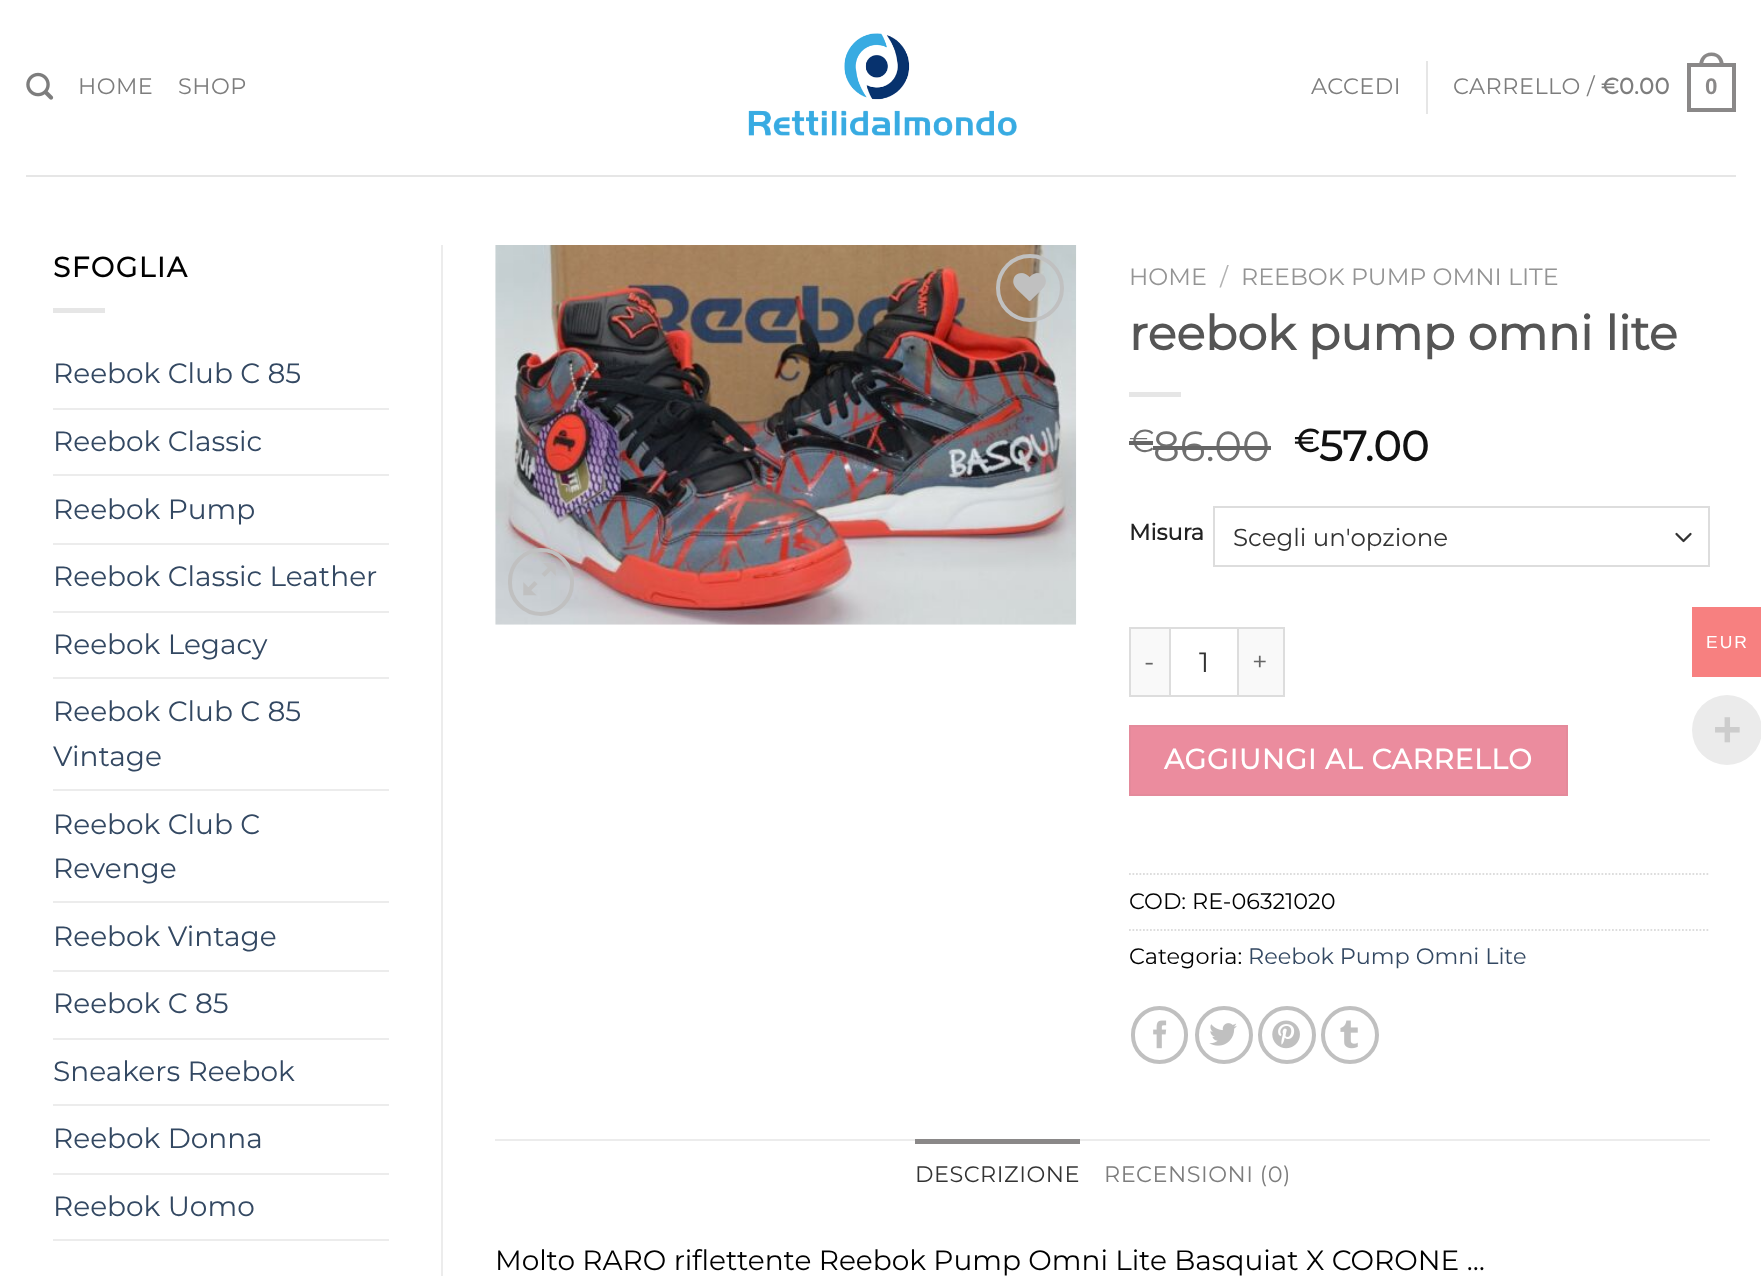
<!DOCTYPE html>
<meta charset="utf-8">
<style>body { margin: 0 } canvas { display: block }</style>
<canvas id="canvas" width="1761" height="1276"></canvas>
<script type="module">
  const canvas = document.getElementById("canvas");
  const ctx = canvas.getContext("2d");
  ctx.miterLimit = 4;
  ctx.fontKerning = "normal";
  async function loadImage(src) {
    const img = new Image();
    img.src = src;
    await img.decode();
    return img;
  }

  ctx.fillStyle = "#ffffff";
  ctx.fillRect(0, 0, 1761, 1276);
  ctx.drawImage(await loadImage("img1.png"), 26, 72, 28, 28);
  ctx.letterSpacing = "0.5px";
  ctx.font = "22.4px Montserrat";
  ctx.fillStyle = "#7d7d7d";
  ctx.fillText("HOME", 78, 94);
  ctx.fillText("SHOP", 178, 94);
  ctx.drawImage(await loadImage("img2.png"), 748, 33, 269, 103);
  ctx.fillText("ACCEDI", 1311, 94);
  ctx.fillStyle = "#e6e6e6";
  ctx.fillRect(1426, 61, 2, 53);
  ctx.fillStyle = "#7d7d7d";
  ctx.fillText("CARRELLO /", 1453, 94);
  ctx.font = "bold 22.4px Montserrat";
  ctx.fillText("€", 1601, 94);
  ctx.fillText("0.00", 1619, 94);
  ctx.strokeStyle = "#8a8888";
  ctx.lineWidth = 4;
  ctx.strokeRect(1689, 65, 45, 45);
  ctx.fillStyle = "#8a8888";
  ctx.beginPath();
  ctx.moveTo(1711.5, 52.5);
  ctx.bezierCurveTo(1720, 52.5, 1724, 59, 1724, 66.5);
  ctx.lineTo(1699, 66.5);
  ctx.bezierCurveTo(1699, 59, 1703, 52.5, 1711.5, 52.5);
  ctx.closePath();
  ctx.moveTo(1711.5, 56);
  ctx.bezierCurveTo(1718, 56, 1720, 61, 1720, 66.5);
  ctx.lineTo(1703, 66.5);
  ctx.bezierCurveTo(1703, 61, 1705, 56, 1711.5, 56);
  ctx.closePath();
  ctx.fill("evenodd");
  ctx.font = "bold 22.4px Liberation Sans";
  ctx.fillText("0", 1705, 94);
  ctx.fillStyle = "#e6e6e6";
  ctx.fillRect(26, 175, 1710, 2);
  ctx.letterSpacing = "1.5px";
  ctx.font = "bold 28px Montserrat";
  ctx.fillStyle = "#000000";
  ctx.fillText("SFOGLIA", 53, 277);
  ctx.fillStyle = "#e6e6e6";
  ctx.fillRect(53, 308, 52, 5);
  ctx.letterSpacing = "0px";
  ctx.font = "28px Montserrat";
  ctx.fillStyle = "#334862";
  ctx.fillText("Reebok Club C 85", 53, 383);
  ctx.fillStyle = "#ececec";
  ctx.fillRect(53, 408, 336, 2);
  ctx.fillStyle = "#334862";
  ctx.fillText("Reebok Classic", 53, 451);
  ctx.fillStyle = "#ececec";
  ctx.fillRect(53, 474, 336, 2);
  ctx.fillStyle = "#334862";
  ctx.fillText("Reebok Pump", 53, 519);
  ctx.fillStyle = "#ececec";
  ctx.fillRect(53, 543, 336, 2);
  ctx.fillStyle = "#334862";
  ctx.fillText("Reebok Classic Leather", 53, 586);
  ctx.fillStyle = "#ececec";
  ctx.fillRect(53, 611, 336, 2);
  ctx.fillStyle = "#334862";
  ctx.fillText("Reebok Legacy", 53, 654);
  ctx.fillStyle = "#ececec";
  ctx.fillRect(53, 677, 336, 2);
  ctx.fillStyle = "#334862";
  ctx.fillText("Reebok Club C 85", 53, 721);
  ctx.fillText("Vintage", 53, 766);
  ctx.fillStyle = "#ececec";
  ctx.fillRect(53, 789, 336, 2);
  ctx.fillStyle = "#334862";
  ctx.fillText("Reebok Club C", 53, 834);
  ctx.fillText("Revenge", 53, 878);
  ctx.fillStyle = "#ececec";
  ctx.fillRect(53, 901, 336, 2);
  ctx.fillStyle = "#334862";
  ctx.fillText("Reebok Vintage", 53, 946);
  ctx.fillStyle = "#ececec";
  ctx.fillRect(53, 970, 336, 2);
  ctx.fillStyle = "#334862";
  ctx.fillText("Reebok C 85", 53, 1013);
  ctx.fillStyle = "#ececec";
  ctx.fillRect(53, 1038, 336, 2);
  ctx.fillStyle = "#334862";
  ctx.fillText("Sneakers Reebok", 53, 1081);
  ctx.fillStyle = "#ececec";
  ctx.fillRect(53, 1104, 336, 2);
  ctx.fillStyle = "#334862";
  ctx.fillText("Reebok Donna", 53, 1148);
  ctx.fillStyle = "#ececec";
  ctx.fillRect(53, 1173, 336, 2);
  ctx.fillStyle = "#334862";
  ctx.fillText("Reebok Uomo", 53, 1216);
  ctx.fillStyle = "#ececec";
  ctx.fillRect(53, 1239, 336, 2);
  ctx.fillRect(441, 245, 2, 1031);
  ctx.drawImage(await loadImage("img3.png"), 495, 245, 582, 380);
  ctx.beginPath();
  ctx.arc(1030, 288, 32, 0, Math.PI * 2);
  ctx.strokeStyle = "#c0c0c0";
  ctx.stroke();
  ctx.drawImage(await loadImage("img4.png"), 1013, 273, 33, 28);
  ctx.beginPath();
  ctx.roundRect(510, 550, 62, 64, 31);
  ctx.stroke();
  ctx.drawImage(await loadImage("img5.png"), 523, 563, 33, 33);
  ctx.font = "23.75px Montserrat";
  ctx.fillStyle = "#949494";
  ctx.fillText("HOME", 1129, 285);
  ctx.fillStyle = "#b2b2b2";
  ctx.fillText("/", 1220, 285);
  ctx.fillStyle = "#949494";
  ctx.fillText("REEBOK PUMP OMNI LITE", 1241, 285);
  ctx.font = "bold 47.6px Montserrat";
  ctx.fillStyle = "#555555";
  ctx.fillText("reebok pump omni lite", 1129, 350);
  ctx.fillStyle = "#e6e6e6";
  ctx.fillRect(1129, 392, 52, 5);
  ctx.font = "32px Montserrat";
  ctx.fillStyle = "#707070";
  ctx.fillText("€", 1129, 452);
  ctx.fillStyle = "#666666";
  ctx.fillRect(1129, 441, 24, 4);
  ctx.font = "42px Montserrat";
  ctx.fillStyle = "#707070";
  ctx.fillText("86.00", 1153, 461);
  ctx.fillStyle = "#666666";
  ctx.fillRect(1153, 446, 118, 4);
  ctx.font = "bold 32px Montserrat";
  ctx.fillStyle = "#111111";
  ctx.fillText("€", 1294, 452);
  ctx.font = "bold 42px Montserrat";
  ctx.fillText("57.00", 1319, 461);
  ctx.font = "bold 22.5px Montserrat";
  ctx.fillStyle = "#222222";
  ctx.fillText("Misura", 1129, 540);
  ctx.beginPath();
  ctx.moveTo(1676.5, 534);
  ctx.lineTo(1683.5, 541);
  ctx.lineTo(1690.5, 534);
  ctx.strokeStyle = "#333333";
  ctx.lineWidth = 2.3;
  ctx.lineCap = "round";
  ctx.lineJoin = "round";
  ctx.stroke();
  ctx.strokeStyle = "#dddddd";
  ctx.lineWidth = 2;
  ctx.lineJoin = "miter";
  ctx.strokeRect(1214, 507, 495, 59);
  ctx.font = "24.5px Montserrat";
  ctx.fillStyle = "#333333";
  ctx.fillText("Scegli un'opzione", 1233, 546);
  ctx.fillStyle = "#f9f9f9";
  ctx.fillRect(1131, 629, 38, 66);
  ctx.fillStyle = "#dddddd";
  ctx.fillRect(1129, 627, 40, 2);
  ctx.fillRect(1129, 695, 40, 2);
  ctx.fillRect(1129, 627, 2, 70);
  ctx.letterSpacing = "1px";
  ctx.font = "27px Montserrat";
  ctx.fillStyle = "#666666";
  ctx.fillText("-", 1144, 671);
  ctx.strokeRect(1170, 628, 68, 68);
  ctx.letterSpacing = "0px";
  ctx.font = "28px Montserrat";
  ctx.fillStyle = "#333333";
  ctx.fillText("1", 1199, 672);
  ctx.fillStyle = "#f9f9f9";
  ctx.fillRect(1239, 629, 44, 66);
  ctx.fillStyle = "#dddddd";
  ctx.fillRect(1239, 627, 46, 2);
  ctx.fillRect(1283, 627, 2, 70);
  ctx.fillRect(1239, 695, 46, 2);
  ctx.letterSpacing = "1px";
  ctx.font = "27px Montserrat";
  ctx.fillStyle = "#666666";
  ctx.fillText("+", 1252, 671);
  ctx.fillStyle = "#eb8c9e";
  ctx.beginPath();
  ctx.rect(1130, 726, 437, 69);
  ctx.fill();
  ctx.strokeStyle = "#e48a9b";
  ctx.stroke();
  ctx.letterSpacing = "0.8px";
  ctx.font = "bold 28px Montserrat";
  ctx.fillStyle = "#ffffff";
  ctx.fillText("AGGIUNGI AL CARRELLO", 1164, 769);
  ctx.beginPath();
  ctx.moveTo(1129, 874);
  ctx.lineTo(1710, 874);
  ctx.strokeStyle = "#dddddd";
  ctx.lineWidth = 1.8;
  ctx.lineCap = "butt";
  ctx.setLineDash([1.75, 1.75]);
  ctx.stroke();
  ctx.letterSpacing = "0px";
  ctx.font = "22.4px Montserrat";
  ctx.fillStyle = "#000000";
  ctx.fillText("COD: RE-06321020", 1129, 909);
  ctx.beginPath();
  ctx.moveTo(1129, 930);
  ctx.lineTo(1710, 930);
  ctx.stroke();
  ctx.fillText("Categoria:", 1129, 964);
  ctx.fillStyle = "#334862";
  ctx.fillText("Reebok Pump Omni Lite", 1248, 964);
  ctx.beginPath();
  ctx.roundRect(1133, 1008, 53, 54, 26.5);
  ctx.strokeStyle = "#c0c0c0";
  ctx.lineWidth = 4;
  ctx.setLineDash([]);
  ctx.stroke();
  ctx.drawImage(await loadImage("img6.png"), 1153, 1020, 14, 29);
  ctx.beginPath();
  ctx.arc(1224, 1035, 27, 0, Math.PI * 2);
  ctx.stroke();
  ctx.drawImage(await loadImage("img7.png"), 1209, 1023, 28, 23);
  ctx.beginPath();
  ctx.arc(1287, 1035, 27, 0, Math.PI * 2);
  ctx.stroke();
  ctx.drawImage(await loadImage("img8.png"), 1272, 1020, 28, 29);
  ctx.beginPath();
  ctx.arc(1350, 1035, 27, 0, Math.PI * 2);
  ctx.stroke();
  ctx.drawImage(await loadImage("img9.png"), 1340, 1020, 18, 29);
  ctx.fillStyle = "#ececec";
  ctx.fillRect(495, 1139, 1215, 2);
  ctx.fillStyle = "#8a8888";
  ctx.fillRect(915, 1139, 165, 5);
  ctx.letterSpacing = "0.5px";
  ctx.fillStyle = "#333333";
  ctx.fillText("DESCRIZIONE", 915, 1182);
  ctx.fillStyle = "#7d7d7d";
  ctx.fillText("RECENSIONI (0)", 1104, 1182);
  ctx.letterSpacing = "0px";
  ctx.font = "28px Montserrat";
  ctx.fillStyle = "#000000";
  ctx.fillText("Molto RARO riflettente Reebok Pump Omni Lite Basquiat X CORONE …", 495, 1270);
  ctx.fillStyle = "#f78080";
  ctx.fillRect(1692, 607, 69, 70);
  ctx.letterSpacing = "2px";
  ctx.font = "17.5px Liberation Sans";
  ctx.fillStyle = "#ffffff";
  ctx.fillText("EUR", 1706, 648);
  ctx.fillStyle = "#ebebeb";
  ctx.beginPath();
  ctx.arc(1727, 730, 35, 0, Math.PI * 2);
  ctx.fill();
  ctx.letterSpacing = "0px";
  ctx.font = "bold 49px Liberation Sans";
  ctx.fillStyle = "#cccccc";
  ctx.fillText("+", 1713, 746);
</script>
